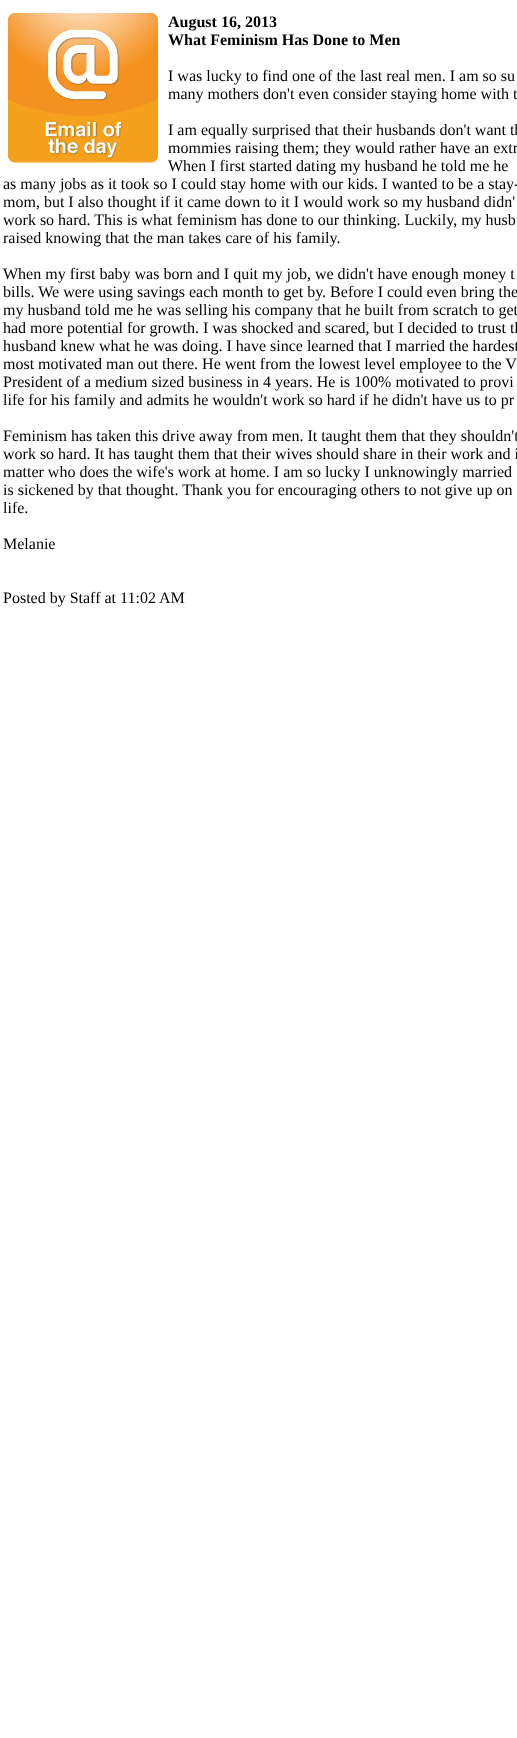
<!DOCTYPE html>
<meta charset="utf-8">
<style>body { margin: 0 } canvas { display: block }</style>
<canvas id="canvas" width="517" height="1738"></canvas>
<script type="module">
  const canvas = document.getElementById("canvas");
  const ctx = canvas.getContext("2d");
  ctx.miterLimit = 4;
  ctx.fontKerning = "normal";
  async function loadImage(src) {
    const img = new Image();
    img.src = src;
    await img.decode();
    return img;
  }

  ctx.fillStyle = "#ffffff";
  ctx.fillRect(0, 0, 517, 1738);
  ctx.drawImage(await loadImage("img1.png"), 8, 13, 150, 150);
  ctx.font = "bold 16px Liberation Serif";
  ctx.fillStyle = "#000000";
  ctx.fillText("August 16, 2013", 168, 27);
  ctx.fillText("What Feminism Has Done to Men", 168, 45);
  ctx.font = "16px Liberation Serif";
  ctx.fillText("I was lucky to find one of the last real men. I am so su", 168, 81);
  ctx.fillText("many mothers don't even consider staying home with t", 168, 99);
  ctx.fillText("I am equally surprised that their husbands don't want th", 168, 135);
  ctx.fillText("mommies raising them; they would rather have an extr", 168, 153);
  ctx.fillText("When I first started dating my husband he told me he", 168, 171);
  ctx.fillText("as many jobs as it took so I could stay home with our kids. I wanted to be a stay-", 3, 189);
  ctx.fillText("mom, but I also thought if it came down to it I would work so my husband didn'", 3, 207);
  ctx.fillText("work so hard. This is what feminism has done to our thinking. Luckily, my husb", 3, 225);
  ctx.fillText("raised knowing that the man takes care of his family.", 3, 243);
  ctx.fillText("When my first baby was born and I quit my job, we didn't have enough money t", 3, 279);
  ctx.fillText("bills. We were using savings each month to get by. Before I could even bring the", 3, 297);
  ctx.fillText("my husband told me he was selling his company that he built from scratch to get", 3, 315);
  ctx.fillText("had more potential for growth. I was shocked and scared, but I decided to trust th", 3, 333);
  ctx.fillText("husband knew what he was doing. I have since learned that I married the hardest", 3, 351);
  ctx.fillText("most motivated man out there. He went from the lowest level employee to the V", 3, 369);
  ctx.fillText("President of a medium sized business in 4 years. He is 100% motivated to provi", 3, 387);
  ctx.fillText("life for his family and admits he wouldn't work so hard if he didn't have us to pr", 3, 405);
  ctx.fillText("Feminism has taken this drive away from men. It taught them that they shouldn't", 3, 441);
  ctx.fillText("work so hard. It has taught them that their wives should share in their work and i", 3, 459);
  ctx.fillText("matter who does the wife's work at home. I am so lucky I unknowingly married", 3, 477);
  ctx.fillText("is sickened by that thought. Thank you for encouraging others to not give up on", 3, 495);
  ctx.fillText("life.", 3, 513);
  ctx.fillText("Melanie", 3, 549);
  ctx.fillText("Posted by Staff at 11:02 AM", 3, 603);
</script>
